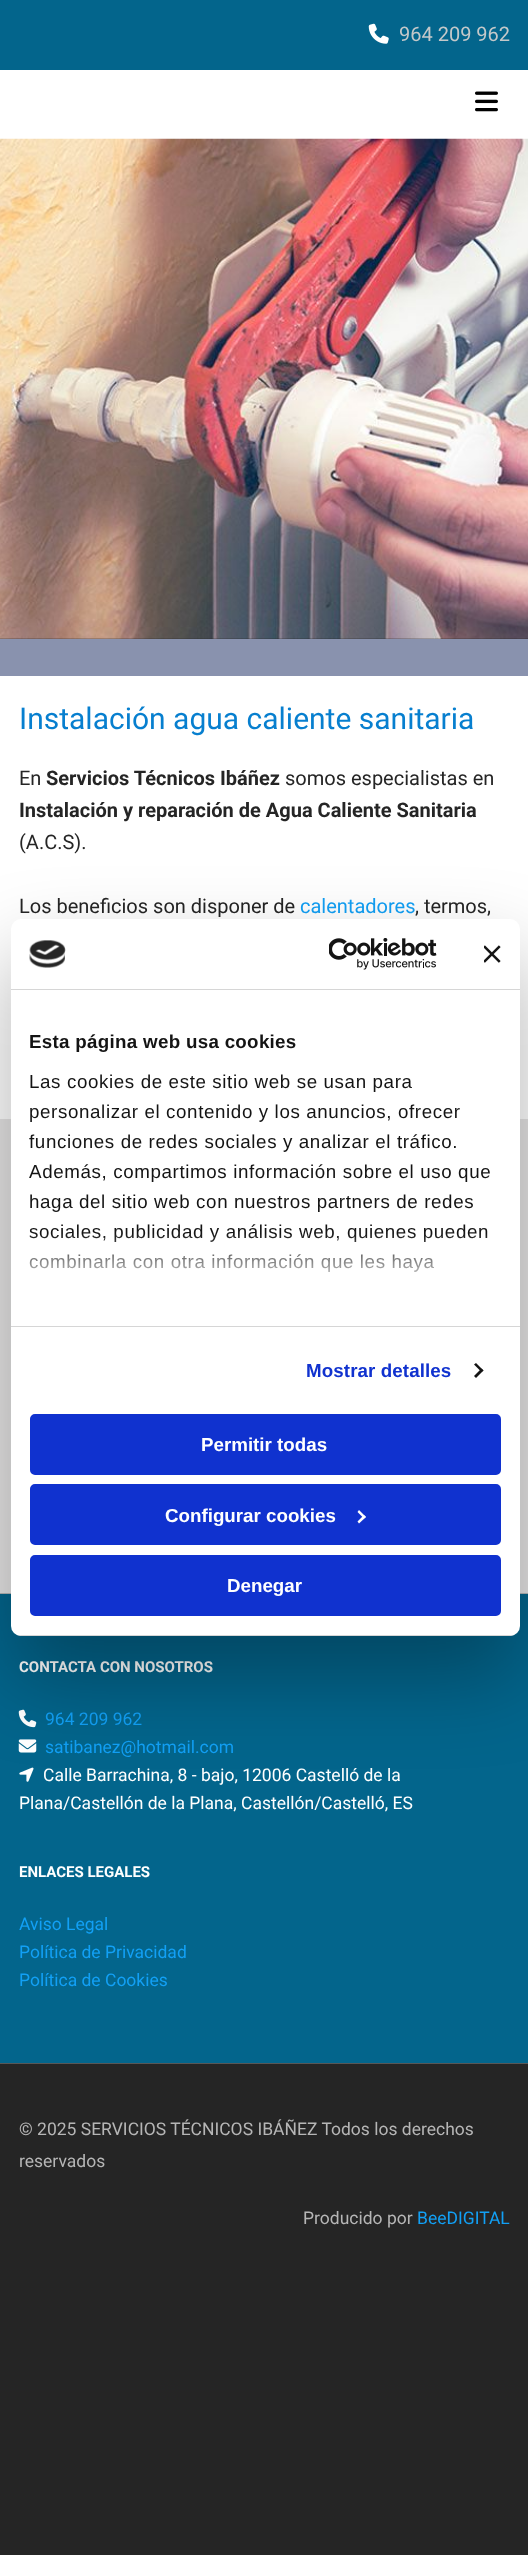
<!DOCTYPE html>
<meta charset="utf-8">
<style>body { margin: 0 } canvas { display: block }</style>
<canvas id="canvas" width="528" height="2555"></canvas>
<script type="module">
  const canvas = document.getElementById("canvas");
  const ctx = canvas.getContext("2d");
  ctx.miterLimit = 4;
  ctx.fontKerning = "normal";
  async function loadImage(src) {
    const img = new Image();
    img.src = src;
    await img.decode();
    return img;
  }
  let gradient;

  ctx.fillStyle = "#252525";
  ctx.fillRect(0, 0, 528, 2555);
  ctx.fillStyle = "#03658c";
  ctx.fillRect(0, 0, 528, 70);
  ctx.drawImage(await loadImage("img1.png"), 368, 23, 21, 21);
  ctx.font = "20px Roboto";
  ctx.fillStyle = "#c4c8c9";
  ctx.fillText("964 209 962", 399, 41);
  ctx.fillStyle = "#ffffff";
  ctx.fillRect(0, 70, 528, 69);
  ctx.drawImage(await loadImage("img2.png"), 475, 91, 23, 21);
  ctx.drawImage(await loadImage("img3.png"), 0, 138, 528, 501);
  ctx.fillStyle = "#8992ae";
  ctx.fillRect(0, 639, 528, 37);
  ctx.fillStyle = "#ffffff";
  ctx.fillRect(0, 676, 528, 443);
  ctx.font = "30px Roboto";
  ctx.fillStyle = "#077fcf";
  ctx.fillText("Instalación agua caliente sanitaria", 19, 729);
  ctx.font = "20px Roboto";
  ctx.fillStyle = "#252525";
  ctx.fillText("En", 19, 785);
  ctx.font = "bold 20px Roboto";
  ctx.fillText("Servicios Técnicos Ibáñez", 46, 785);
  ctx.font = "20px Roboto";
  ctx.fillText("somos especialistas en", 285, 785);
  ctx.font = "bold 20px Roboto";
  ctx.fillText("Instalación y reparación de Agua Caliente Sanitaria", 19, 817);
  ctx.font = "20px Roboto";
  ctx.fillText("(A.C.S).", 19, 849);
  ctx.fillText("Los beneficios son disponer de", 19, 913);
  ctx.fillStyle = "#12a0f5";
  ctx.fillText("calentadores", 300, 913);
  ctx.fillStyle = "#252525";
  ctx.fillText(", termos,", 415, 913);
  ctx.fillStyle = "#e6e5e5";
  ctx.fillRect(0, 1119, 528, 474);
  ctx.fillStyle = "#03658c";
  ctx.fillRect(0, 1594, 528, 469);
  ctx.fillStyle = "#b6b6b6";
  ctx.fillRect(0, 1593, 528, 1);
  ctx.font = "bold 15px Roboto";
  ctx.fillStyle = "#ffffff";
  ctx.fillText("CONTACTA CON NOSOTROS", 19, 1672);
  ctx.drawImage(await loadImage("img4.png"), 18, 1709, 19, 19);
  ctx.font = "17.5px Roboto";
  ctx.fillStyle = "#12a0f5";
  ctx.fillText("964 209 962", 45, 1725);
  ctx.drawImage(await loadImage("img5.png"), 18, 1739, 19, 14);
  ctx.fillText("satibanez@hotmail.com", 45, 1753);
  ctx.drawImage(await loadImage("img6.png"), 19, 1767, 15, 15);
  ctx.fillStyle = "#ffffff";
  ctx.fillText("Calle Barrachina, 8 - bajo, 12006 Castelló de la", 43, 1781);
  ctx.fillText("Plana/Castellón de la Plana, Castellón/Castelló, ES", 19, 1809);
  ctx.font = "bold 15px Roboto";
  ctx.fillText("ENLACES LEGALES", 19, 1877);
  ctx.font = "17.5px Roboto";
  ctx.fillStyle = "#12a0f5";
  ctx.fillText("Aviso Legal", 19, 1930);
  ctx.fillText("Política de Privacidad", 19, 1958);
  ctx.fillText("Política de Cookies", 19, 1986);
  ctx.fillStyle = "#575757";
  ctx.fillRect(0, 2063, 528, 1);
  ctx.fillStyle = "#b6b6b6";
  ctx.fillText("© 2025 SERVICIOS TÉCNICOS IBÁÑEZ Todos los derechos", 19, 2135);
  ctx.fillText("reservados", 19, 2167);
  ctx.fillText("Producido por", 303, 2224);
  ctx.fillStyle = "#12a0f5";
  ctx.fillText("BeeDIGITAL", 417, 2224);
  ctx.fillStyle = "rgba(0, 0, 0, 0.3)";
  ctx.filter = "blur(42.5px)";
  ctx.beginPath();
  ctx.roundRect(11, 959, 509, 717, 10);
  ctx.fill();
  ctx.filter = "none";
  ctx.fillStyle = "#ffffff";
  ctx.beginPath();
  ctx.roundRect(11, 919, 509, 717, 10);
  ctx.fill();
  ctx.fillStyle = "#d6d6d6";
  ctx.fillRect(11, 989, 509, 1);
  ctx.drawImage(await loadImage("img7.png"), 29, 940, 37, 28);
  ctx.drawImage(await loadImage("img8.png"), 329, 938, 108, 32);
  ctx.drawImage(await loadImage("img9.png"), 484, 945, 17, 18);
  ctx.fillRect(11, 1326, 509, 1);
  ctx.letterSpacing = "0.3px";
  ctx.font = "bold 18.75px Liberation Sans";
  ctx.fillStyle = "#141414";
  ctx.fillText("Esta página web usa cookies", 29, 1048);
  ctx.letterSpacing = "0.62px";
  ctx.font = "18.75px Liberation Sans";
  ctx.fillText("Las cookies de este sitio web se usan para", 29, 1088);
  ctx.fillText("personalizar el contenido y los anuncios, ofrecer", 29, 1118);
  ctx.fillText("funciones de redes sociales y analizar el tráfico.", 29, 1148);
  ctx.fillText("Además, compartimos información sobre el uso que", 29, 1178);
  ctx.fillText("haga del sitio web con nuestros partners de redes", 29, 1208);
  ctx.fillText("sociales, publicidad y análisis web, quienes pueden", 29, 1238);
  ctx.fillText("combinarla con otra información que les haya", 29, 1268);
  gradient = ctx.createLinearGradient(257, 1327, 257, 1233);
  gradient.addColorStop(0, "#ffffff");
  gradient.addColorStop(0.5, "rgba(255, 255, 255, 0.8)");
  gradient.addColorStop(1, "rgba(255, 255, 255, 0)");
  ctx.fillStyle = gradient;
  ctx.fillRect(29, 1234, 459, 38);
  ctx.letterSpacing = "0.1px";
  ctx.font = "bold 18.75px Liberation Sans";
  ctx.fillStyle = "#1032cf";
  ctx.fillText("Mostrar detalles", 306, 1377);
  ctx.fillStyle = "#141414";
  ctx.beginPath();
  ctx.moveTo(476, 1363);
  ctx.lineTo(483.5, 1370.5);
  ctx.lineTo(481.5, 1372);
  ctx.lineTo(474, 1364.5);
  ctx.closePath();
  ctx.fill();
  ctx.beginPath();
  ctx.moveTo(481.5, 1368.5);
  ctx.lineTo(483.5, 1370.5);
  ctx.lineTo(476, 1378);
  ctx.lineTo(474, 1376);
  ctx.closePath();
  ctx.fill();
  ctx.save();
  ctx.beginPath();
  ctx.roundRect(11, 919, 509, 717, 10);
  ctx.clip();
  ctx.fillStyle = "#d6d6d6";
  ctx.fillRect(11, 1635, 509, 1);
  ctx.restore();
  ctx.fillStyle = "#1032cf";
  ctx.beginPath();
  ctx.roundRect(31.5, 1415.5, 468, 58, 3.5);
  ctx.fill();
  ctx.strokeStyle = "#1032cf";
  ctx.lineWidth = 3;
  ctx.stroke();
  ctx.letterSpacing = "0px";
  ctx.fillStyle = "#ffffff";
  ctx.fillText("Permitir todas", 201, 1451);
  ctx.fillStyle = "#1032cf";
  ctx.beginPath();
  ctx.roundRect(31.5, 1485.5, 468, 58, 3.5);
  ctx.fill();
  ctx.stroke();
  ctx.fillStyle = "#ffffff";
  ctx.fillText("Configurar cookies", 165, 1522);
  ctx.beginPath();
  ctx.moveTo(359, 1510);
  ctx.lineTo(366, 1517);
  ctx.lineTo(364, 1518.5);
  ctx.lineTo(357.5, 1512);
  ctx.closePath();
  ctx.fill();
  ctx.beginPath();
  ctx.moveTo(364, 1515);
  ctx.lineTo(366, 1517);
  ctx.lineTo(359, 1523.5);
  ctx.lineTo(357.5, 1521.5);
  ctx.closePath();
  ctx.fill();
  ctx.fillStyle = "#1032cf";
  ctx.beginPath();
  ctx.roundRect(31.5, 1556.5, 468, 58, 3.5);
  ctx.fill();
  ctx.stroke();
  ctx.fillStyle = "#ffffff";
  ctx.fillText("Denegar", 227, 1592);
</script>
